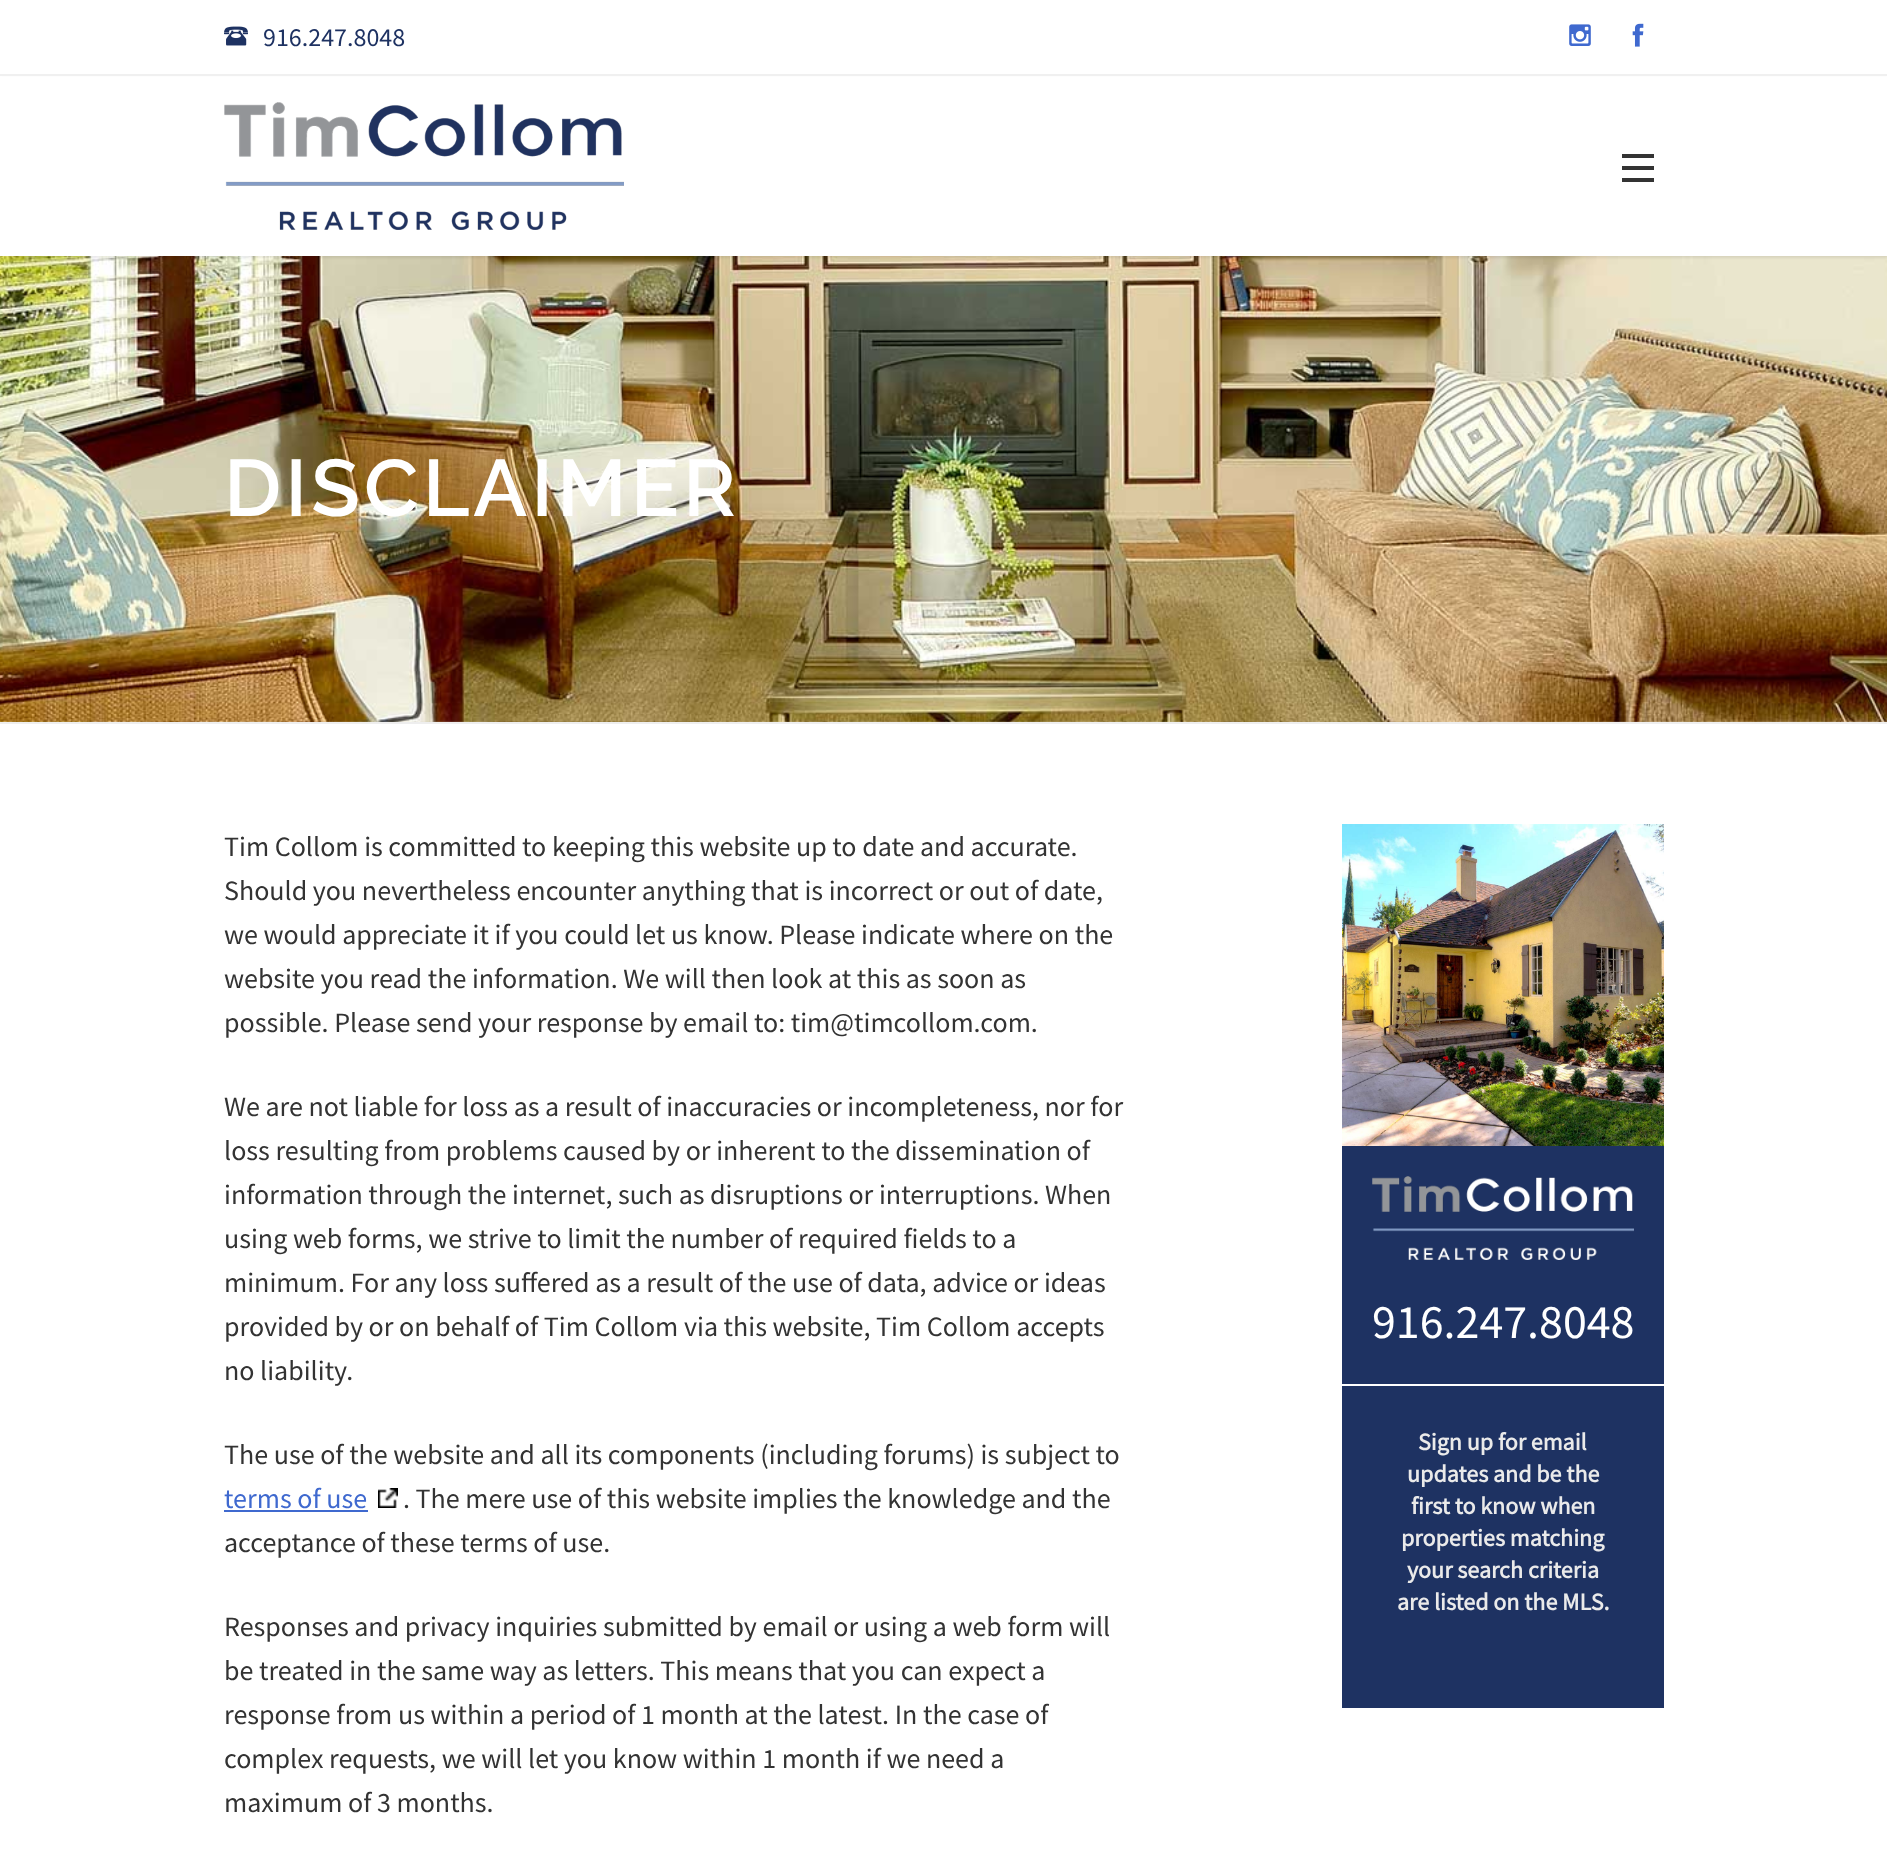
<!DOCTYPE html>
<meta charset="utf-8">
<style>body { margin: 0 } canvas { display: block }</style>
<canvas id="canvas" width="1887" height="1856"></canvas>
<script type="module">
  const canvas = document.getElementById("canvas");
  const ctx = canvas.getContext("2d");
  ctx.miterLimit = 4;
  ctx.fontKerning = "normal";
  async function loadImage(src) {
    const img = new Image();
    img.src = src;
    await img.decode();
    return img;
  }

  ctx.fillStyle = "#ffffff";
  ctx.fillRect(0, 0, 1887, 1856);
  ctx.drawImage(await loadImage("img5.png"), 0, 256, 1887, 466);
  ctx.fillStyle = "rgba(0, 0, 0, 0.08)";
  ctx.filter = "blur(1px)";
  ctx.beginPath();
  ctx.rect(0, 78, 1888, 180);
  ctx.fill();
  ctx.filter = "none";
  ctx.fillStyle = "#f0f0f0";
  ctx.fillRect(0, 74, 1887, 2);
  ctx.drawImage(await loadImage("img1.png"), 224, 26, 24, 20);
  ctx.font = "26px Source Sans Pro";
  ctx.fillStyle = "#1e3262";
  ctx.fillText("916.247.8048", 263, 46);
  ctx.drawImage(await loadImage("img2.png"), 1569, 24, 22, 22);
  ctx.drawImage(await loadImage("img3.png"), 1632, 23, 12, 24);
  ctx.fillStyle = "#ffffff";
  ctx.fillRect(0, 77, 1887, 179);
  ctx.drawImage(await loadImage("img4.png"), 224, 102, 400, 128);
  ctx.fillStyle = "#333333";
  ctx.fillRect(1622, 166, 32, 4);
  ctx.fillRect(1622, 154, 32, 4);
  ctx.fillRect(1622, 178, 32, 4);
  ctx.fillStyle = "#eeeeee";
  ctx.fillRect(0, 722, 1887, 2);
  ctx.letterSpacing = "4px";
  ctx.font = "600 80px Raleway";
  ctx.fillStyle = "#ffffff";
  ctx.fillText("DISCLAIMER", 224, 516);
  ctx.letterSpacing = "0px";
  ctx.font = "28px Source Sans Pro";
  ctx.fillStyle = "#333333";
  ctx.fillText("Tim Collom is committed to keeping this website up to date and accurate.", 224, 856);
  ctx.fillText("Should you nevertheless encounter anything that is incorrect or out of date,", 224, 900);
  ctx.fillText("we would appreciate it if you could let us know. Please indicate where on the", 224, 944);
  ctx.fillText("website you read the information. We will then look at this as soon as", 224, 988);
  ctx.fillText("possible. Please send your response by email to: tim@timcollom.com.", 224, 1032);
  ctx.fillText("We are not liable for loss as a result of inaccuracies or incompleteness, nor for", 224, 1116);
  ctx.fillText("loss resulting from problems caused by or inherent to the dissemination of", 224, 1160);
  ctx.fillText("information through the internet, such as disruptions or interruptions. When", 224, 1204);
  ctx.fillText("using web forms, we strive to limit the number of required fields to a", 224, 1248);
  ctx.fillText("minimum. For any loss suffered as a result of the use of data, advice or ideas", 224, 1292);
  ctx.fillText("provided by or on behalf of Tim Collom via this website, Tim Collom accepts", 224, 1336);
  ctx.fillText("no liability.", 224, 1380);
  ctx.fillText("The use of the website and all its components (including forums) is subject to", 224, 1464);
  ctx.fillStyle = "#3f69cf";
  ctx.fillText("terms of use", 224, 1508);
  ctx.fillRect(224, 1510, 144, 2);
  ctx.drawImage(await loadImage("img6.png"), 378, 1488, 20, 20);
  ctx.fillStyle = "#333333";
  ctx.fillText(". The mere use of this website implies the knowledge and the", 403, 1508);
  ctx.fillText("acceptance of these terms of use.", 224, 1552);
  ctx.fillText("Responses and privacy inquiries submitted by email or using a web form will", 224, 1636);
  ctx.fillText("be treated in the same way as letters. This means that you can expect a", 224, 1680);
  ctx.fillText("response from us within a period of 1 month at the latest. In the case of", 224, 1724);
  ctx.fillText("complex requests, we will let you know within 1 month if we need a", 224, 1768);
  ctx.fillText("maximum of 3 months.", 224, 1812);
  ctx.fillStyle = "#1e3262";
  ctx.fillRect(1342, 1146, 322, 562);
  ctx.drawImage(await loadImage("img7.png"), 1342, 824, 322, 322);
  ctx.drawImage(await loadImage("img8.png"), 1372, 1176, 262, 84);
  ctx.fillStyle = "#ffffff";
  ctx.fillRect(1342, 1384, 322, 2);
  ctx.font = "48px Source Sans Pro";
  ctx.fillText("916.247.8048", 1372, 1338);
  ctx.font = "bold 24px Source Sans Pro";
  ctx.fillStyle = "#eaeaea";
  ctx.fillText("Sign up for email", 1418, 1450);
  ctx.fillText("updates and be the", 1407, 1482);
  ctx.fillText("first to know when", 1411, 1514);
  ctx.fillText("properties matching", 1401, 1546);
  ctx.fillText("your search criteria", 1407, 1578);
  ctx.fillText("are listed on the MLS.", 1397, 1610);
</script>
